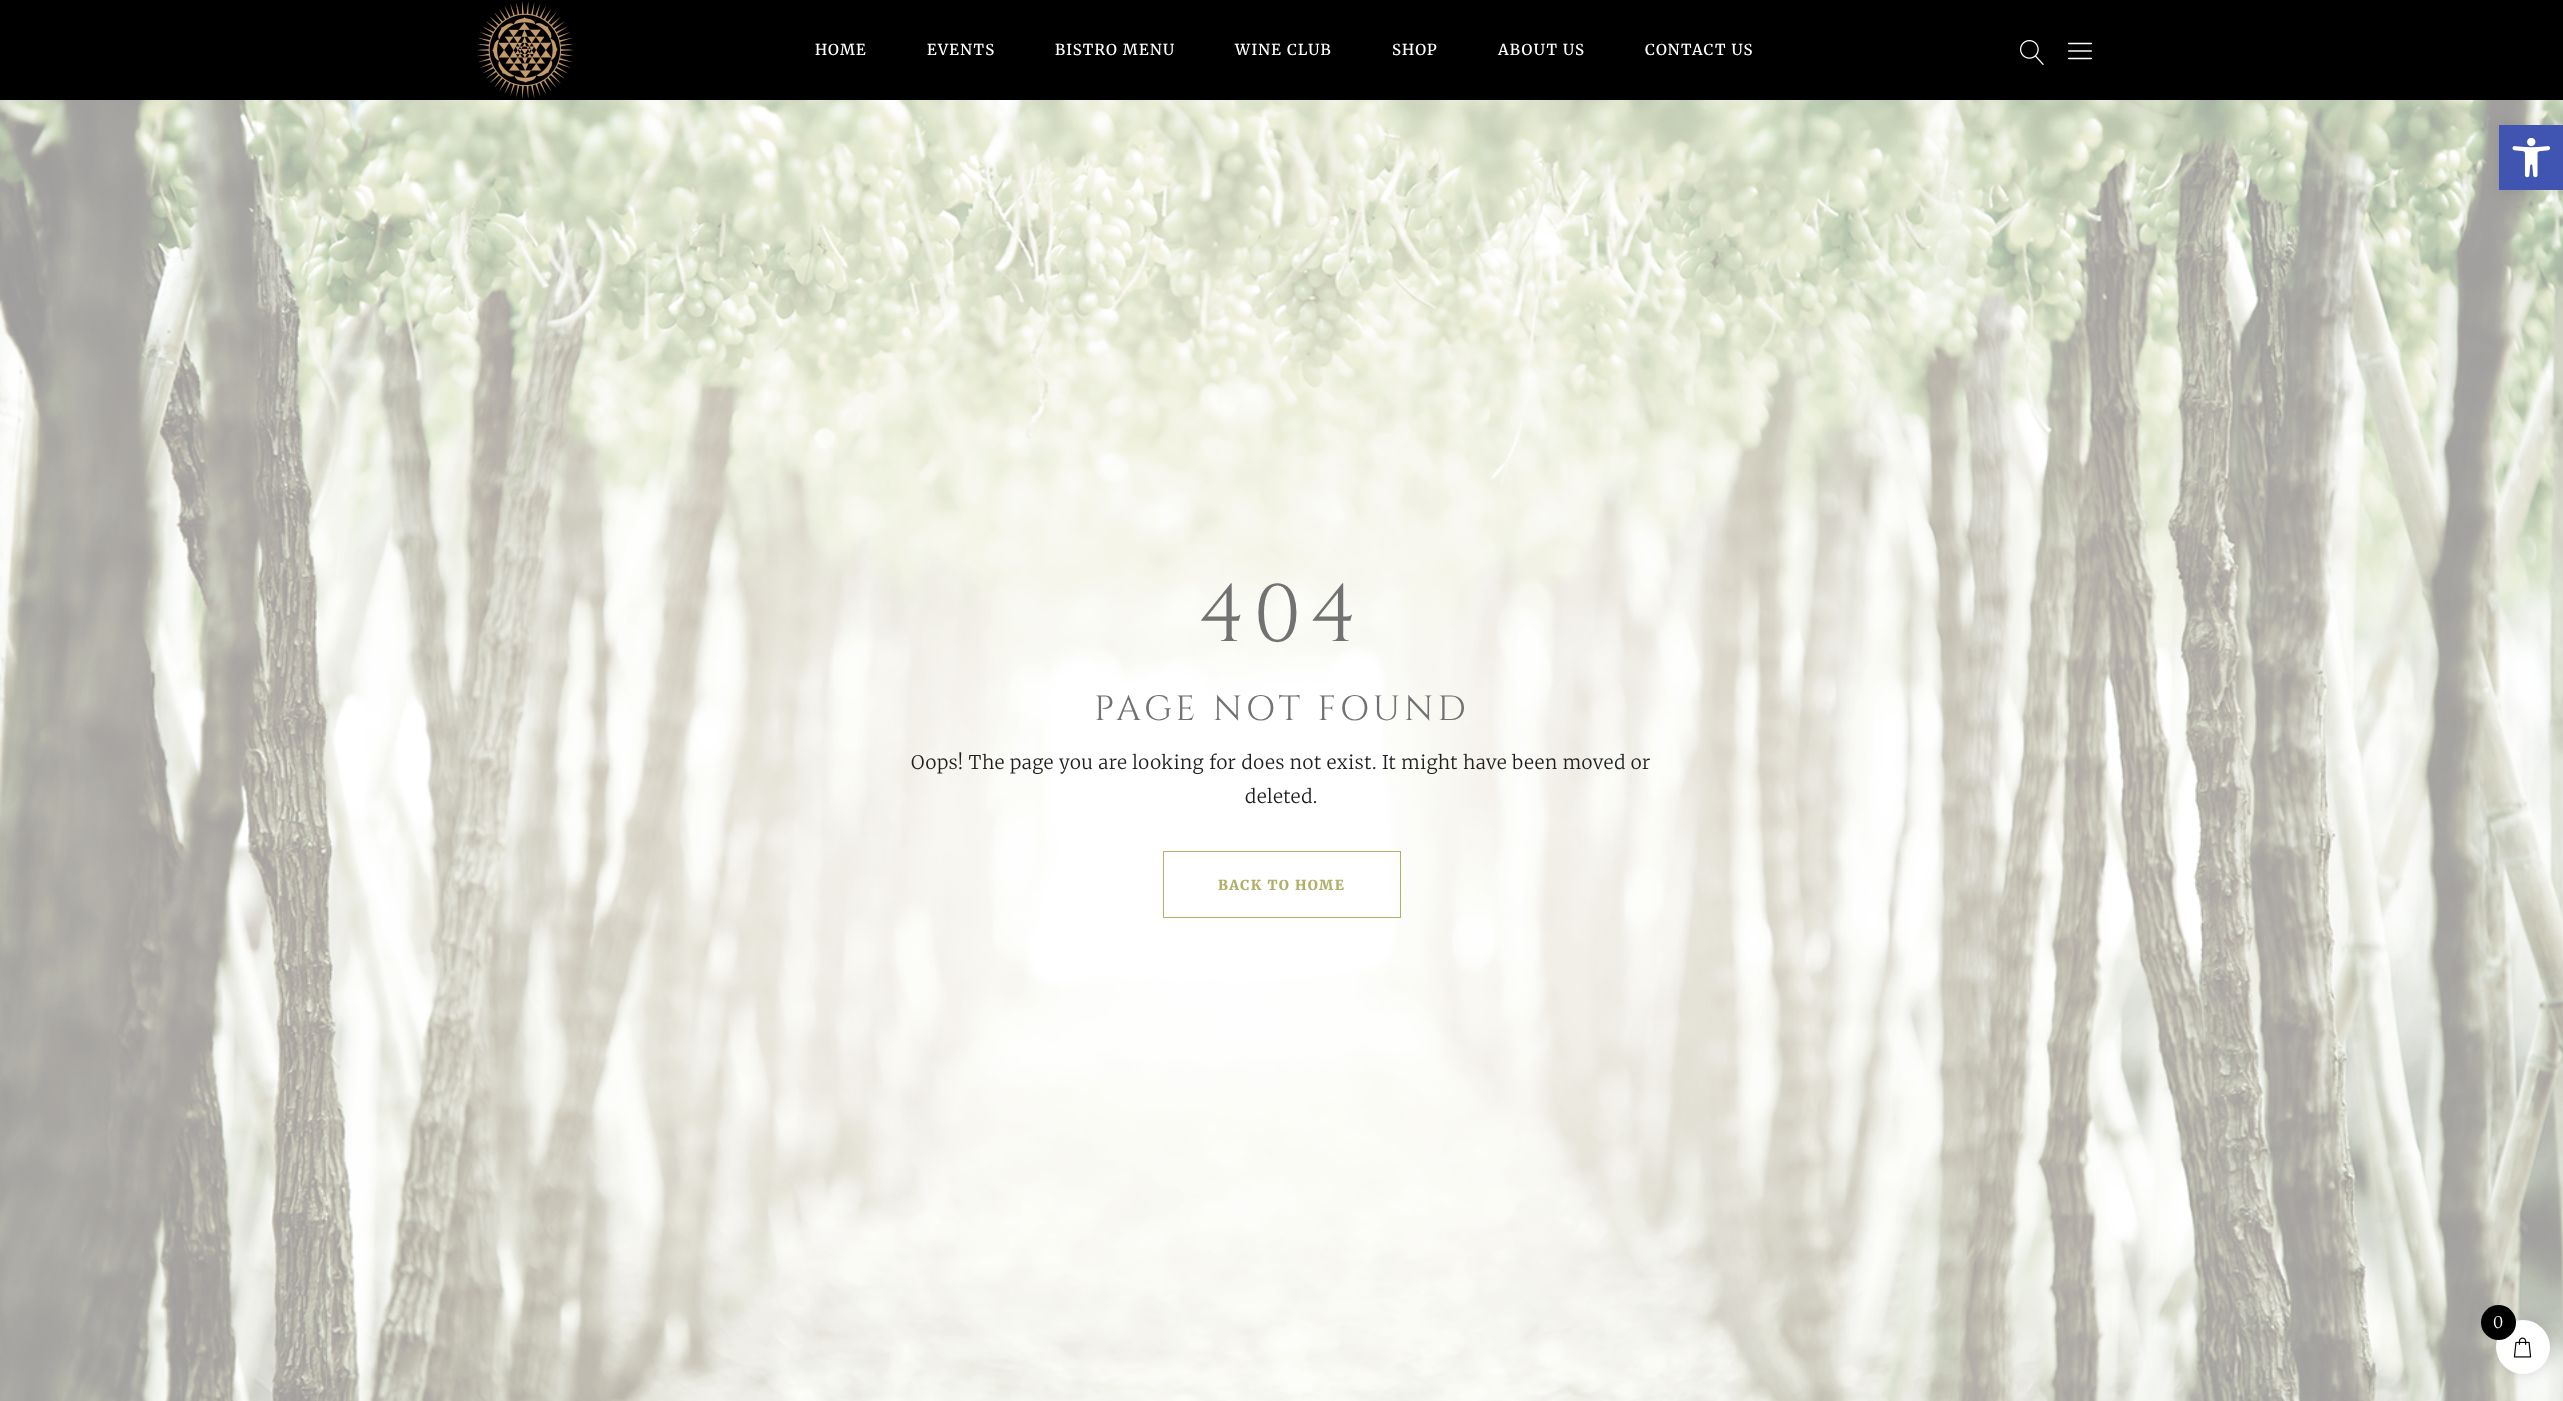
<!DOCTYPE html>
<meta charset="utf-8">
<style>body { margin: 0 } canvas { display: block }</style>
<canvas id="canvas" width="2563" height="1401"></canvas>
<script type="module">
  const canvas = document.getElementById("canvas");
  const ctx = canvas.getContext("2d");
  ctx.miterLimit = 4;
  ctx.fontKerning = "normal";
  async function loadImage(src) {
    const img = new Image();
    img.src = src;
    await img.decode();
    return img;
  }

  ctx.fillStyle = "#ffffff";
  ctx.fillRect(0, 0, 2563, 1401);
  ctx.fillStyle = "#000000";
  ctx.fillRect(0, 0, 2563, 100);
  ctx.drawImage(await loadImage("img1.png"), 477, 1, 97, 98);
  ctx.letterSpacing = "1.25px";
  ctx.font = "500 15px Merriweather";
  ctx.fillStyle = "#ffffff";
  ctx.fillText("HOME", 815, 55);
  ctx.fillText("EVENTS", 927, 55);
  ctx.fillText("BISTRO MENU", 1055, 55);
  ctx.fillText("WINE CLUB", 1235, 55);
  ctx.fillText("SHOP", 1392, 55);
  ctx.fillText("ABOUT US", 1498, 55);
  ctx.fillText("CONTACT US", 1645, 55);
  ctx.drawImage(await loadImage("img2.png"), 2020, 40, 24, 25);
  ctx.drawImage(await loadImage("img3.png"), 2068, 42, 24, 18);
  ctx.drawImage(await loadImage("img4.png"), 0, 100, 2563, 1301);
  ctx.letterSpacing = "8px";
  ctx.font = "81px Cinzel";
  ctx.fillStyle = "#737272";
  ctx.fillText("404", 1198, 641);
  ctx.letterSpacing = "4.25px";
  ctx.font = "35px Cinzel";
  ctx.fillText("PAGE NOT FOUND", 1094, 720);
  ctx.letterSpacing = "0.55px";
  ctx.font = "300 18.75px Merriweather";
  ctx.fillStyle = "#1e1e1e";
  ctx.fillText("Oops! The page you are looking for does not exist. It might have been moved or", 911, 769);
  ctx.fillText("deleted.", 1245, 803);
  ctx.strokeStyle = "#b1af6a";
  ctx.strokeRect(1163.5, 851.5, 237, 66);
  ctx.letterSpacing = "1.4px";
  ctx.font = "900 13.75px Merriweather";
  ctx.fillStyle = "#b1af6a";
  ctx.fillText("BACK TO HOME", 1218, 890);
  ctx.fillStyle = "rgba(0, 0, 0, 0.1)";
  ctx.filter = "blur(6px)";
  ctx.beginPath();
  ctx.rect(2499, 125, 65, 65);
  ctx.fill();
  ctx.filter = "none";
  ctx.fillStyle = "#4054b2";
  ctx.fillRect(2499, 125, 64, 65);
  ctx.drawImage(await loadImage("img5.png"), 2512, 138, 38, 40);
  ctx.fillStyle = "rgba(0, 0, 0, 0.1)";
  ctx.filter = "blur(6px)";
  ctx.beginPath();
  ctx.roundRect(2494, 1318, 59, 58, 29);
  ctx.fill();
  ctx.filter = "none";
  ctx.fillStyle = "#ffffff";
  ctx.beginPath();
  ctx.arc(2523, 1347, 27, 0, Math.PI * 2);
  ctx.fill();
  ctx.drawImage(await loadImage("img6.png"), 2513, 1337, 19, 21);
  ctx.fillStyle = "#000000";
  ctx.beginPath();
  ctx.arc(2498.5, 1322.5, 17.5, 0, Math.PI * 2);
  ctx.fill();
  ctx.letterSpacing = "0.55px";
  ctx.font = "300 16px Merriweather";
  ctx.fillStyle = "#ffffff";
  ctx.fillText("0", 2493, 1328);
</script>
